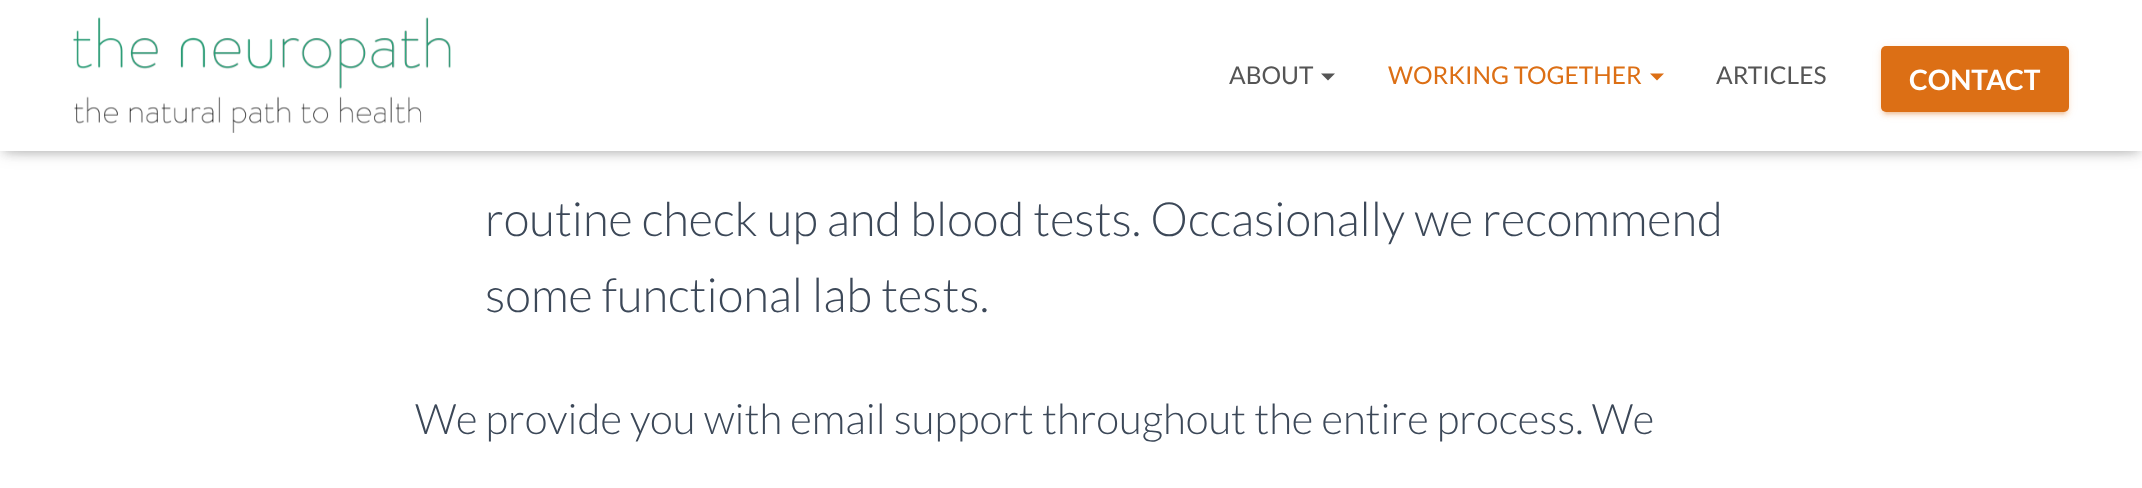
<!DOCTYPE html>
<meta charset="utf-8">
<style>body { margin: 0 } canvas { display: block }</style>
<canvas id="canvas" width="2142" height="488"></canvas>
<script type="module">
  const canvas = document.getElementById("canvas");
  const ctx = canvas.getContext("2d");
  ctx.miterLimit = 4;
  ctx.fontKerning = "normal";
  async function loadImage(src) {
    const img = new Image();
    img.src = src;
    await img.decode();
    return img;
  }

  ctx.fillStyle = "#ffffff";
  ctx.fillRect(0, 0, 2142, 488);
  ctx.fillStyle = "rgba(0, 0, 0, 0.1)";
  ctx.filter = "blur(4.5px)";
  ctx.beginPath();
  ctx.rect(4, 11, 2135, 143);
  ctx.fill();
  ctx.filter = "none";
  ctx.fillStyle = "rgba(0, 0, 0, 0.12)";
  ctx.filter = "blur(9px)";
  ctx.beginPath();
  ctx.rect(0, 2, 2142, 150);
  ctx.fill();
  ctx.filter = "none";
  ctx.fillStyle = "rgba(0, 0, 0, 0.42)";
  ctx.filter = "blur(9px)";
  ctx.beginPath();
  ctx.rect(11, 12, 2121, 130);
  ctx.fill();
  ctx.filter = "none";
  ctx.fillStyle = "#ffffff";
  ctx.fillRect(0, 0, 2142, 151);
  ctx.drawImage(await loadImage("img1.png"), 73, 17, 378, 116);
  ctx.font = "24.5px Lato";
  ctx.fillStyle = "#555555";
  ctx.fillText("ABOUT", 1229, 84);
  ctx.beginPath();
  ctx.moveTo(1321, 73.5);
  ctx.lineTo(1335, 73.5);
  ctx.lineTo(1328, 80.5);
  ctx.closePath();
  ctx.fill();
  ctx.fillStyle = "#dc6f15";
  ctx.fillText("WORKING TOGETHER", 1388, 84);
  ctx.beginPath();
  ctx.moveTo(1650, 73.5);
  ctx.lineTo(1664, 73.5);
  ctx.lineTo(1657, 80.5);
  ctx.closePath();
  ctx.fill();
  ctx.fillStyle = "#555555";
  ctx.fillText("ARTICLES", 1716, 84);
  ctx.fillStyle = "rgba(220, 111, 21, 0.12)";
  ctx.filter = "blur(4.5px)";
  ctx.beginPath();
  ctx.roundRect(1881, 47, 188, 67, 5);
  ctx.fill();
  ctx.filter = "none";
  ctx.fillStyle = "rgba(220, 111, 21, 0.2)";
  ctx.filter = "blur(1px)";
  ctx.beginPath();
  ctx.roundRect(1885, 54, 180, 60, 2);
  ctx.fill();
  ctx.filter = "none";
  ctx.fillStyle = "rgba(220, 111, 21, 0.14)";
  ctx.filter = "blur(2px)";
  ctx.beginPath();
  ctx.roundRect(1881, 49, 188, 67, 5);
  ctx.fill();
  ctx.filter = "none";
  ctx.fillStyle = "#dc6f15";
  ctx.beginPath();
  ctx.roundRect(1881, 46, 188, 66, 5);
  ctx.fill();
  ctx.font = "bold 28px Lato";
  ctx.fillStyle = "#ffffff";
  ctx.fillText("CONTACT", 1909, 90);
  ctx.font = "300 47.25px Lato";
  ctx.fillStyle = "#3c4858";
  ctx.fillText("routine check up and blood tests. Occasionally we recommend", 485, 236);
  ctx.fillText("some functional lab tests.", 485, 312);
  ctx.font = "300 42px Lato";
  ctx.fillText("We provide you with email support throughout the entire process. We", 415, 434);
</script>
